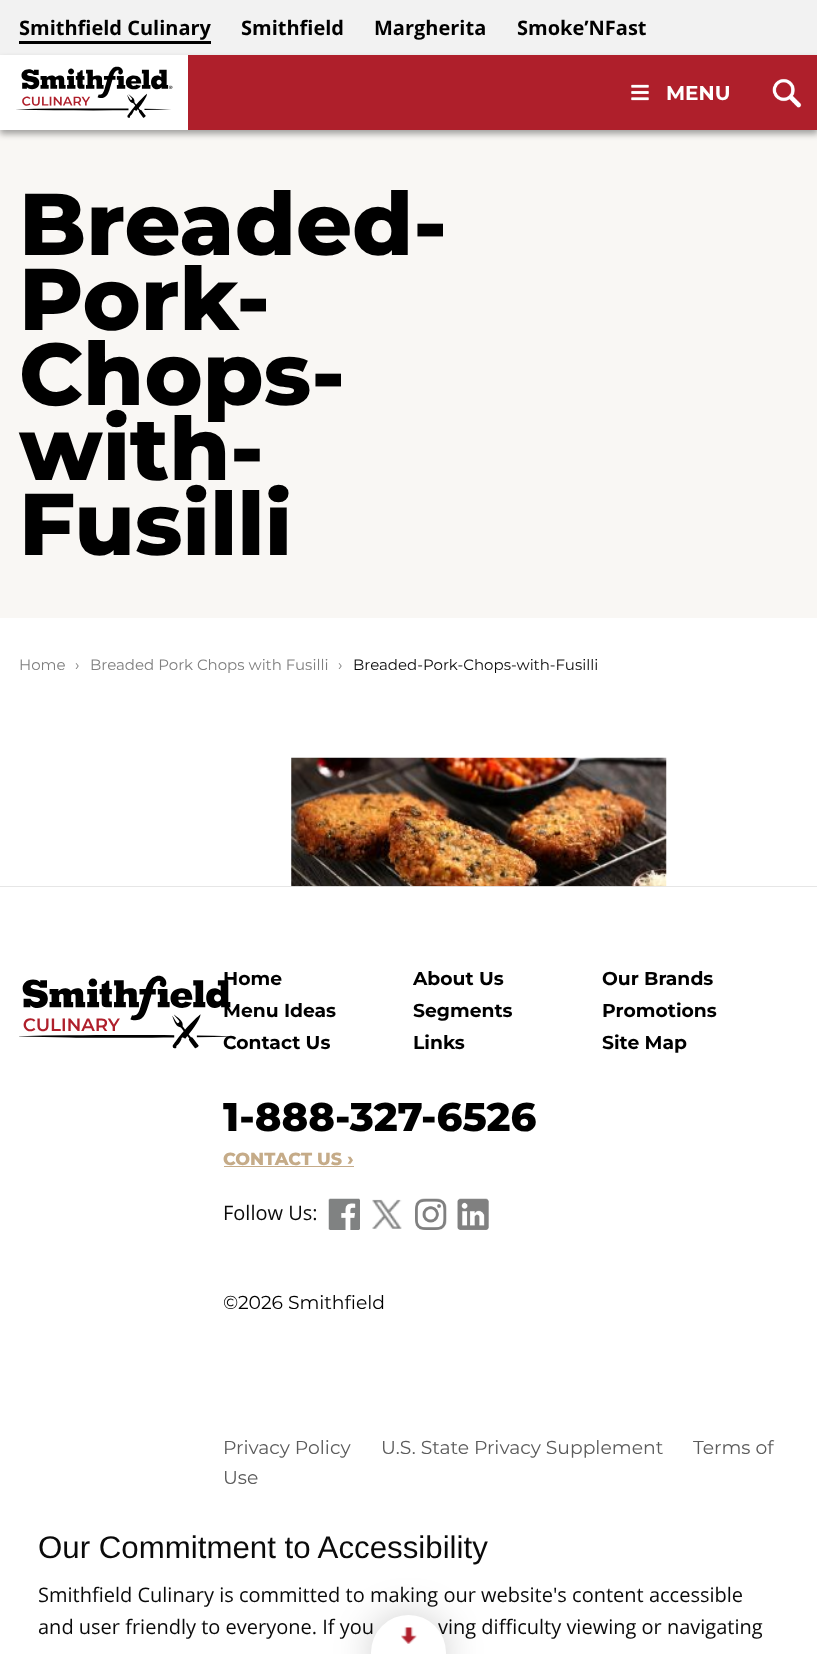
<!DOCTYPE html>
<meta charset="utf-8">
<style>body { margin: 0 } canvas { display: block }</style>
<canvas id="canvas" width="817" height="1654"></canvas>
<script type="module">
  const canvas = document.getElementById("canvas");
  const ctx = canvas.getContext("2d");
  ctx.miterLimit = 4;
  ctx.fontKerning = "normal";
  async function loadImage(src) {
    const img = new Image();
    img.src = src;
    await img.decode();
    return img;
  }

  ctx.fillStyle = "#ffffff";
  ctx.fillRect(0, 0, 817, 1654);
  ctx.fillStyle = "#f2f2f2";
  ctx.fillRect(0, 0, 817, 55);
  ctx.font = "bold 20px Open Sans";
  ctx.fillStyle = "#000000";
  ctx.fillText("Smithfield Culinary", 19, 35);
  ctx.fillRect(19, 41, 192, 3);
  ctx.fillText("Smithfield", 241, 35);
  ctx.fillText("Margherita", 374, 35);
  ctx.fillText("Smoke’NFast", 517, 35);
  ctx.fillStyle = "#f9f7f4";
  ctx.fillRect(0, 130, 817, 488);
  ctx.fillStyle = "rgba(0, 0, 0, 0.35)";
  ctx.filter = "blur(3px)";
  ctx.beginPath();
  ctx.rect(0, 59, 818, 75);
  ctx.fill();
  ctx.filter = "none";
  ctx.fillStyle = "#af1f2b";
  ctx.fillRect(188, 55, 629, 75);
  ctx.fillStyle = "#ffffff";
  ctx.fillRect(0, 55, 188, 75);
  ctx.drawImage(await loadImage("img1.png"), 16, 66, 157, 52);
  ctx.drawImage(await loadImage("img2.png"), 631, 84, 18, 17);
  ctx.font = "bold 20px Montserrat";
  ctx.fillText("MENU", 666, 100);
  ctx.drawImage(await loadImage("img3.png"), 772, 78, 30, 30);
  ctx.font = "800 87.5px Montserrat";
  ctx.fillStyle = "#000000";
  ctx.fillText("Breaded-", 19, 255);
  ctx.fillText("Pork-", 19, 330);
  ctx.fillText("Chops-", 19, 405);
  ctx.fillText("with-", 19, 480);
  ctx.fillText("Fusilli", 19, 555);
  ctx.font = "15px Montserrat";
  ctx.fillStyle = "#7f7f7f";
  ctx.fillText("Home", 19, 670);
  ctx.fillText("›", 75, 670);
  ctx.fillText("Breaded Pork Chops with Fusilli", 90, 670);
  ctx.fillText("›", 338, 670);
  ctx.fillStyle = "#0a0a0a";
  ctx.fillText("Breaded-Pork-Chops-with-Fusilli", 353, 670);
  ctx.fillStyle = "#e6e6e6";
  ctx.fillRect(0, 886, 817, 1);
  ctx.drawImage(await loadImage("img4.png"), 291, 757, 376, 130);
  ctx.drawImage(await loadImage("img5.png"), 19, 975, 212, 74);
  ctx.font = "bold 18.75px Montserrat";
  ctx.fillStyle = "#000000";
  ctx.fillText("Home", 223, 985);
  ctx.fillText("About Us", 413, 985);
  ctx.fillText("Our Brands", 602, 985);
  ctx.fillText("Menu Ideas", 223, 1017);
  ctx.fillText("Segments", 413, 1017);
  ctx.fillText("Promotions", 602, 1017);
  ctx.fillText("Contact Us", 223, 1049);
  ctx.fillText("Links", 413, 1049);
  ctx.fillText("Site Map", 602, 1049);
  ctx.font = "800 40px Montserrat";
  ctx.fillText("1-888-327-6526", 223, 1131);
  ctx.font = "800 17.5px Montserrat";
  ctx.fillStyle = "#c5ab88";
  ctx.fillText("CONTACT US ›", 223, 1165);
  ctx.fillRect(224, 1166, 130, 1);
  ctx.font = "20px Open Sans";
  ctx.fillStyle = "#0a0a0a";
  ctx.fillText("Follow Us:", 223, 1220);
  ctx.drawImage(await loadImage("img6.png"), 328, 1198, 32, 32);
  ctx.drawImage(await loadImage("img7.png"), 372, 1199, 30, 30);
  ctx.drawImage(await loadImage("img8.png"), 415, 1198, 32, 32);
  ctx.drawImage(await loadImage("img9.png"), 457, 1198, 32, 32);
  ctx.font = "18.75px Montserrat";
  ctx.fillStyle = "#000000";
  ctx.fillText("©2026 Smithfield", 223, 1309);
  ctx.fillStyle = "#5b5b5b";
  ctx.fillText("Privacy Policy", 223, 1454);
  ctx.fillText("U.S. State Privacy Supplement", 381, 1454);
  ctx.fillText("Terms of", 693, 1454);
  ctx.fillText("Use", 223, 1484);
  ctx.font = "31.25px Liberation Sans";
  ctx.fillStyle = "#0a0a0a";
  ctx.fillText("Our Commitment to Accessibility", 38, 1558);
  ctx.font = "20px Open Sans";
  ctx.fillText("Smithfield Culinary is committed to making our website's content accessible", 38, 1602);
  ctx.fillText("and user friendly to everyone. If you", 38, 1634);
  ctx.fillText("ving difficulty viewing or navigating", 438, 1634);
  ctx.fillStyle = "rgba(0, 0, 0, 0.2)";
  ctx.filter = "blur(19px)";
  ctx.beginPath();
  ctx.roundRect(371, 1615, 75, 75, 37.5);
  ctx.fill();
  ctx.filter = "none";
  ctx.fillStyle = "#ffffff";
  ctx.beginPath();
  ctx.arc(408.5, 1652.5, 37.5, 0, Math.PI * 2);
  ctx.fill();
  ctx.drawImage(await loadImage("img10.png"), 401, 1627, 16, 17);
</script>
